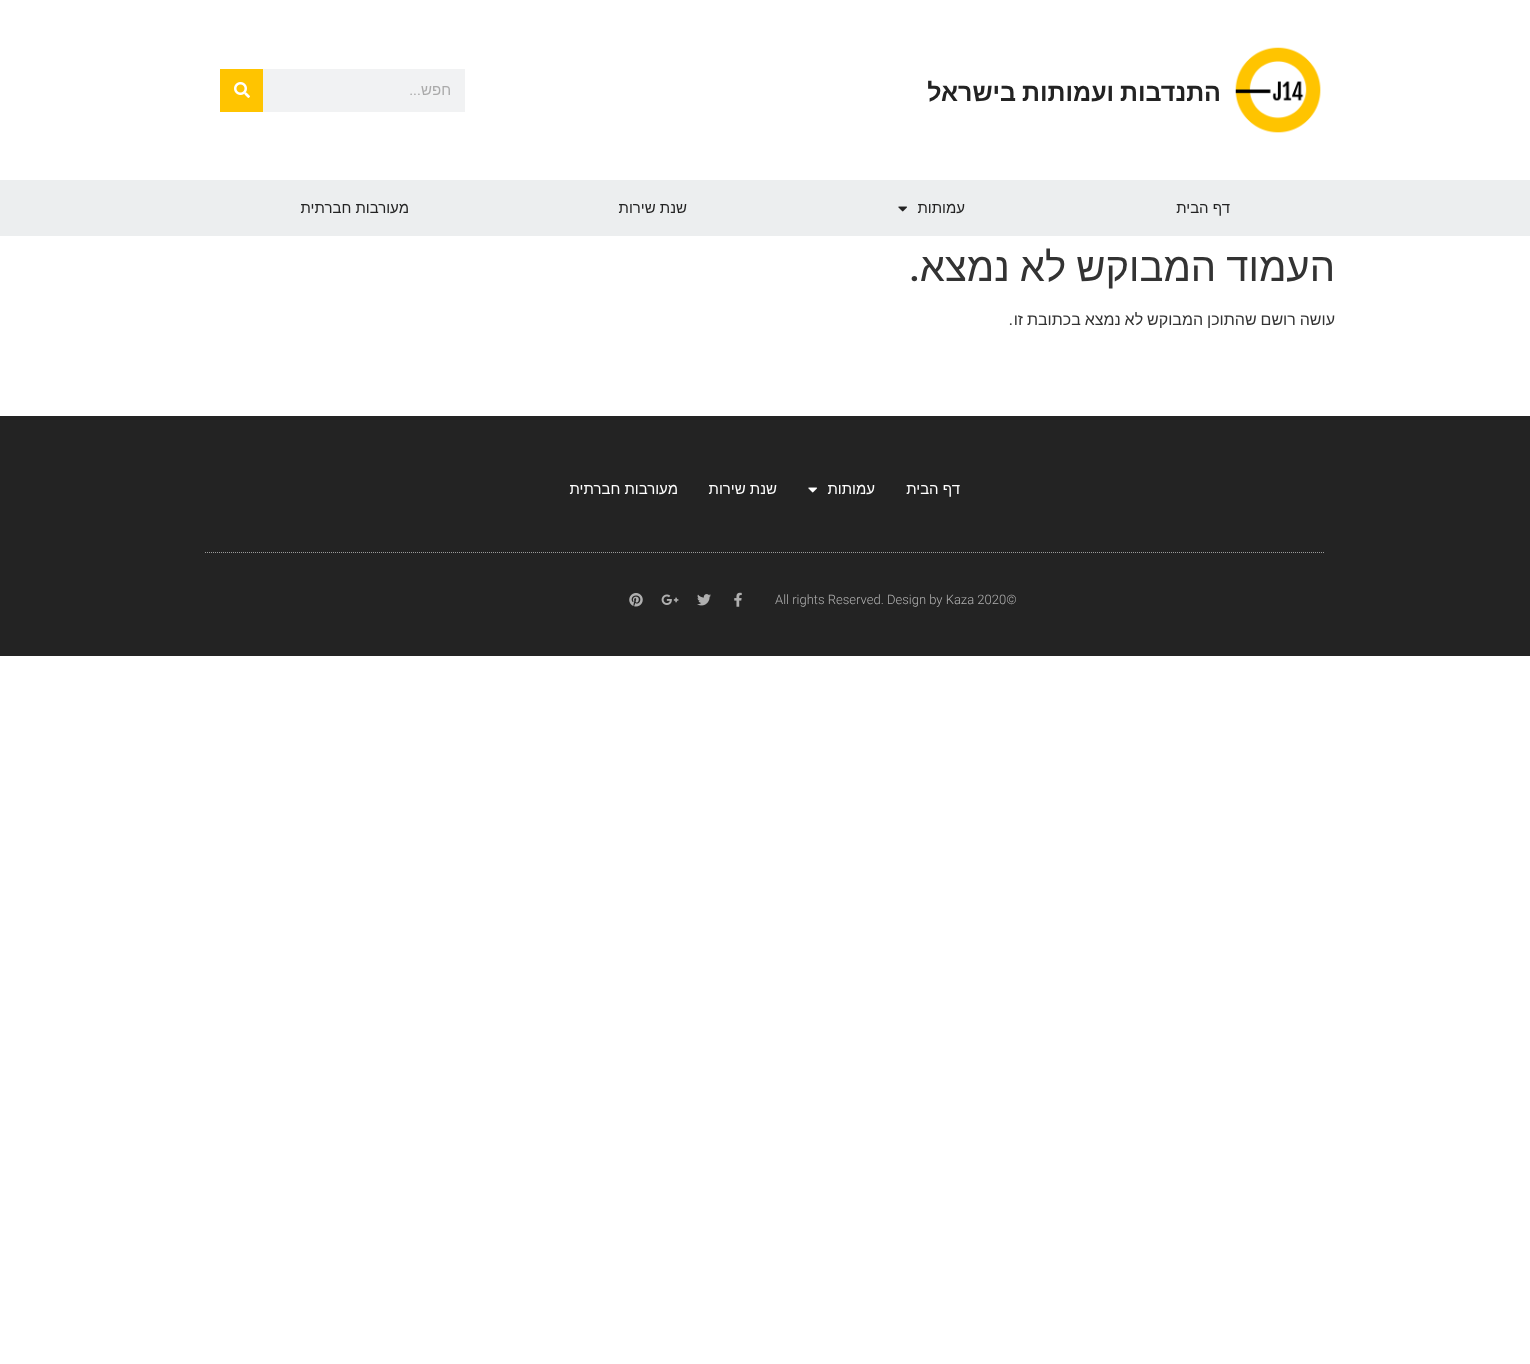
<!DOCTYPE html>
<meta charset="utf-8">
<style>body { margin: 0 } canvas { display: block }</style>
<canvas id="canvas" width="1530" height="1364"></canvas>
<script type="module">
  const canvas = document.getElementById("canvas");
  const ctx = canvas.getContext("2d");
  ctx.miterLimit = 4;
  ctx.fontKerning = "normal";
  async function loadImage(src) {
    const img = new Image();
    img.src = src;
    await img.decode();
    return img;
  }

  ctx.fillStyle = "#ffffff";
  ctx.fillRect(0, 0, 1530, 1364);
  ctx.drawImage(await loadImage("img1.png"), 1235, 47, 86, 86);
  ctx.wordSpacing = "-1px";
  ctx.direction = "rtl";
  ctx.font = "bold 25px Liberation Sans";
  ctx.fillStyle = "#232323";
  ctx.fillText("התנדבות ועמותות בישראל", 1221, 101);
  ctx.fillStyle = "#f1f2f3";
  ctx.fillRect(263, 69, 202, 43);
  ctx.wordSpacing = "0px";
  ctx.font = "15px Liberation Sans";
  ctx.fillStyle = "#aaaaaa";
  ctx.fillText("חפש", 451, 95);
  ctx.font = "15px Roboto";
  ctx.fillText("...", 421, 95);
  ctx.fillStyle = "#ffc400";
  ctx.fillRect(220, 69, 43, 43);
  ctx.drawImage(await loadImage("img2.png"), 234, 82, 16, 16);
  ctx.fillStyle = "#eceeef";
  ctx.fillRect(0, 180, 1530, 56);
  ctx.font = "15px Liberation Sans";
  ctx.fillStyle = "#232323";
  ctx.fillText("דף הבית", 1230, 213);
  ctx.fillText("עמותות", 965, 213);
  ctx.drawImage(await loadImage("img3.png"), 898, 206, 9, 6);
  ctx.fillText("שנת שירות", 687, 213);
  ctx.fillText("מעורבות חברתית", 409, 213);
  ctx.wordSpacing = "-1px";
  ctx.font = "40px Liberation Sans";
  ctx.fillStyle = "#333333";
  ctx.fillText("העמוד המבוקש לא נמצא", 1335, 281);
  ctx.wordSpacing = "0px";
  ctx.font = "500 40px Roboto";
  ctx.fillText(".", 920, 281);
  ctx.wordSpacing = "-0.5px";
  ctx.font = "16px Liberation Sans";
  ctx.fillText("עושה רושם שהתוכן המבוקש לא נמצא בכתובת זו", 1335, 325);
  ctx.wordSpacing = "0px";
  ctx.font = "16px Roboto";
  ctx.fillText(".", 1013, 325);
  ctx.fillStyle = "#232323";
  ctx.fillRect(0, 416, 1530, 240);
  ctx.beginPath();
  ctx.moveTo(205, 552.5);
  ctx.lineTo(1325, 552.5);
  ctx.strokeStyle = "#9b9b9b";
  ctx.setLineDash([1, 1]);
  ctx.stroke();
  ctx.font = "15px Liberation Sans";
  ctx.fillStyle = "#ffffff";
  ctx.fillText("דף הבית", 960, 494);
  ctx.fillText("עמותות", 875, 494);
  ctx.drawImage(await loadImage("img4.png"), 808, 487, 9, 6);
  ctx.fillText("שנת שירות", 777, 494);
  ctx.fillText("מעורבות חברתית", 678, 494);
  ctx.direction = "ltr";
  ctx.font = "300 13px Roboto";
  ctx.fillStyle = "#b0b0b0";
  ctx.fillText("All rights Reserved. Design by Kaza 2020©", 775, 604);
  ctx.drawImage(await loadImage("img5.png"), 734, 592, 8, 15);
  ctx.drawImage(await loadImage("img6.png"), 697, 594, 14, 12);
  ctx.drawImage(await loadImage("img7.png"), 661, 594, 18, 11);
  ctx.drawImage(await loadImage("img8.png"), 629, 593, 14, 14);
</script>
